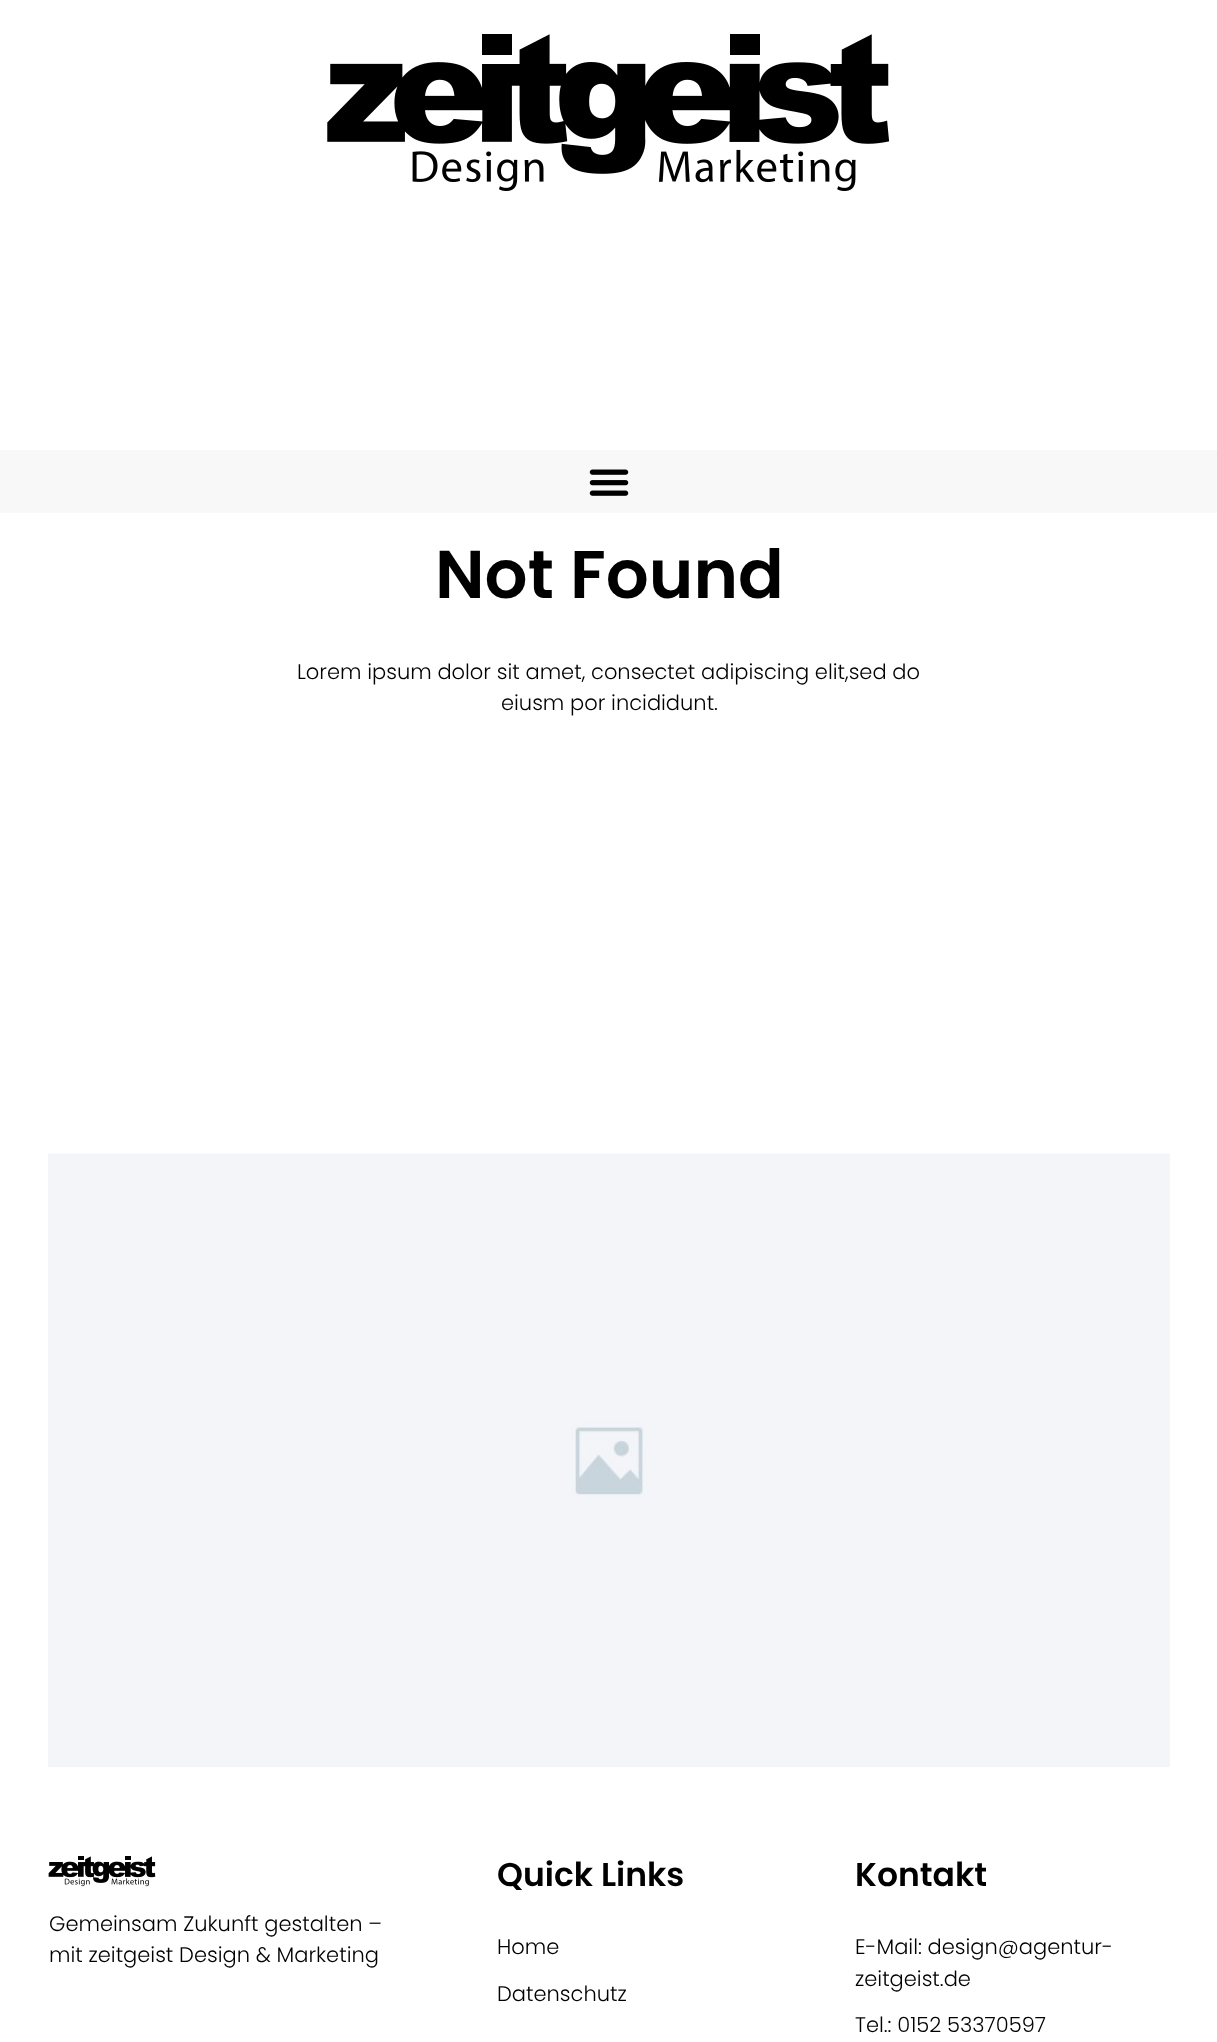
<!DOCTYPE html>
<meta charset="utf-8">
<style>body { margin: 0 } canvas { display: block }</style>
<canvas id="canvas" width="1217" height="2042"></canvas>
<script type="module">
  const canvas = document.getElementById("canvas");
  const ctx = canvas.getContext("2d");
  ctx.miterLimit = 4;
  ctx.fontKerning = "normal";
  async function loadImage(src) {
    const img = new Image();
    img.src = src;
    await img.decode();
    return img;
  }

  ctx.fillStyle = "#ffffff";
  ctx.fillRect(0, 0, 1217, 2042);
  ctx.drawImage(await loadImage("img1.png"), 327, 34, 563, 157);
  ctx.fillStyle = "#f8f8f8";
  ctx.fillRect(0, 450, 1217, 63);
  ctx.drawImage(await loadImage("img2.png"), 589, 469, 40, 27);
  ctx.font = "600 67.5px Poppins";
  ctx.fillStyle = "#000000";
  ctx.fillText("Not Found", 435, 598);
  ctx.font = "300 21px Poppins";
  ctx.fillText("Lorem ipsum dolor sit amet, consectet adipiscing elit,sed do", 297, 679);
  ctx.fillText("eiusm por incididunt.", 501, 710);
  ctx.drawImage(await loadImage("img3.png"), 48, 1153, 1122, 614);
  ctx.drawImage(await loadImage("img4.png"), 48, 1856, 108, 31);
  ctx.fillText("Gemeinsam Zukunft gestalten –", 49, 1931);
  ctx.fillText("mit zeitgeist Design & Marketing", 49, 1962);
  ctx.font = "600 33px Poppins";
  ctx.fillText("Quick Links", 497, 1886);
  ctx.font = "300 21px Poppins";
  ctx.fillText("Home", 497, 1954);
  ctx.fillText("Datenschutz", 497, 2001);
  ctx.font = "600 33px Poppins";
  ctx.fillText("Kontakt", 855, 1886);
  ctx.font = "300 21px Poppins";
  ctx.fillText("E-Mail: design@agentur-", 855, 1954);
  ctx.fillText("zeitgeist.de", 855, 1986);
  ctx.fillText("Tel.: 0152 53370597", 855, 2032);
</script>
